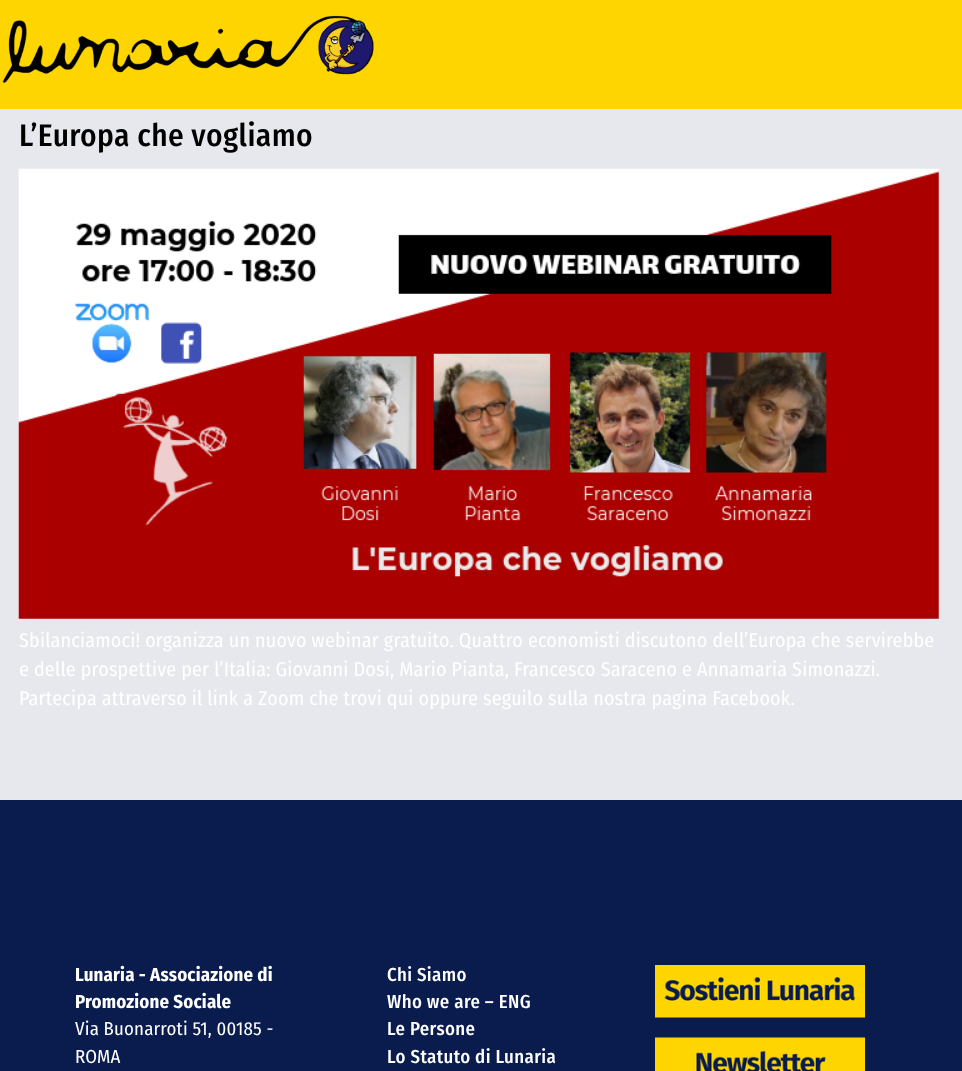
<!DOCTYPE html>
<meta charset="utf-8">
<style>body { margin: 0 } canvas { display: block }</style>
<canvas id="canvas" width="962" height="1071"></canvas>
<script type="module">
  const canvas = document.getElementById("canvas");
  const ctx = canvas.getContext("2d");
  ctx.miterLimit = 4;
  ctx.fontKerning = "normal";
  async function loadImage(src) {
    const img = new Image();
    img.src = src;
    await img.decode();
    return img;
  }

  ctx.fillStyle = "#0a1c4e";
  ctx.fillRect(0, 0, 962, 1071);
  ctx.fillStyle = "#ffd500";
  ctx.fillRect(0, 0, 962, 109);
  ctx.drawImage(await loadImage("img1.png"), 2, 15, 372, 68);
  ctx.fillStyle = "#e7e8ed";
  ctx.fillRect(0, 109, 962, 691);
  ctx.letterSpacing = "0.4px";
  ctx.font = "500 31.25px Fira Sans Condensed";
  ctx.fillStyle = "#000000";
  ctx.fillText("L’Europa che vogliamo", 19, 146);
  ctx.drawImage(await loadImage("img2.png"), 18, 168, 921, 451);
  ctx.letterSpacing = "0.19px";
  ctx.font = "20px Fira Sans Condensed";
  ctx.fillStyle = "#ffffff";
  ctx.fillText("Sbilanciamoci! organizza un nuovo webinar gratuito. Quattro economisti discutono dell’Europa che servirebbe", 19, 647);
  ctx.fillText("e delle prospettive per l’Italia: Giovanni Dosi, Mario Pianta, Francesco Saraceno e Annamaria Simonazzi.", 19, 676);
  ctx.fillText("Partecipa attraverso il link a Zoom che trovi qui oppure seguilo sulla nostra pagina Facebook.", 19, 705);
  ctx.font = "bold 18.75px Fira Sans Condensed";
  ctx.fillText("Lunaria - Associazione di", 75, 981);
  ctx.fillText("Promozione Sociale", 75, 1008);
  ctx.font = "18.75px Fira Sans Condensed";
  ctx.fillText("Via Buonarroti 51, 00185 -", 75, 1035);
  ctx.fillText("ROMA", 75, 1063);
  ctx.letterSpacing = "0.4px";
  ctx.font = "500 18.75px Fira Sans Condensed";
  ctx.fillText("Chi Siamo", 387, 981);
  ctx.fillText("Who we are – ENG", 387, 1008);
  ctx.fillText("Le Persone", 387, 1035);
  ctx.fillText("Lo Statuto di Lunaria", 387, 1063);
  ctx.drawImage(await loadImage("img3.png"), 655, 965, 210, 53);
  ctx.drawImage(await loadImage("img4.png"), 655, 1037, 210, 34);
</script>
